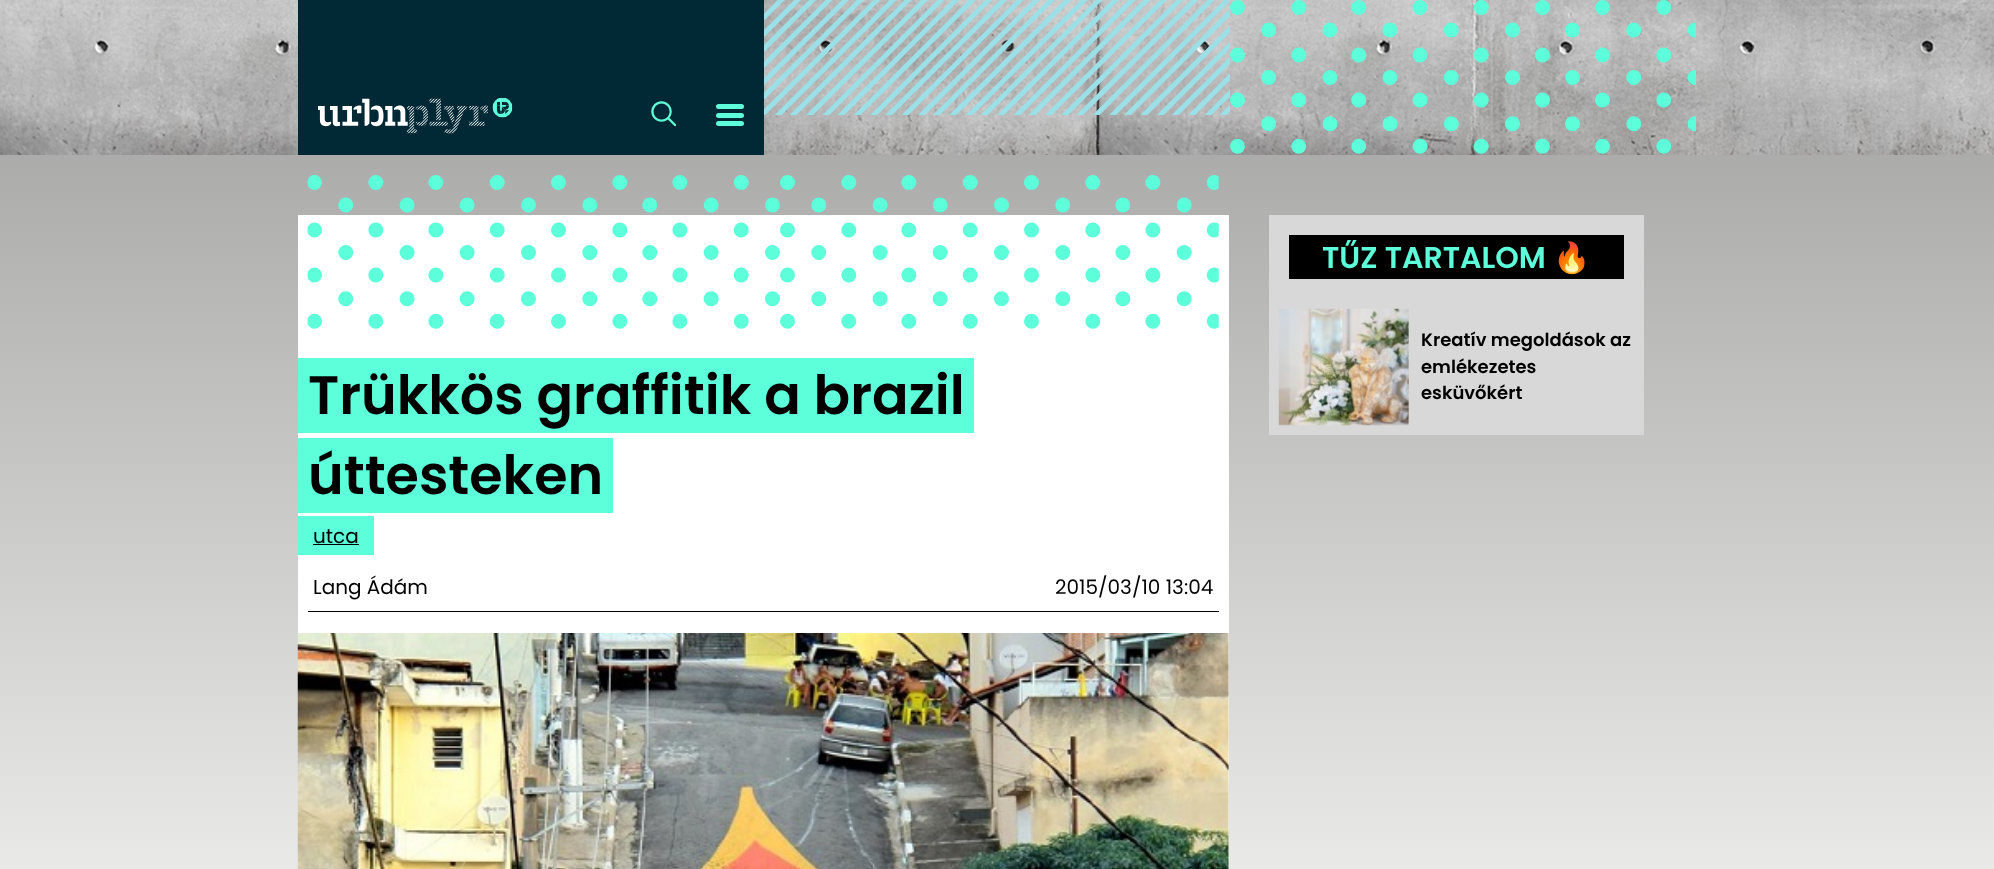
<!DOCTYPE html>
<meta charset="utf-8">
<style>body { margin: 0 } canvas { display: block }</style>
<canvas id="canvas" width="1994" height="869"></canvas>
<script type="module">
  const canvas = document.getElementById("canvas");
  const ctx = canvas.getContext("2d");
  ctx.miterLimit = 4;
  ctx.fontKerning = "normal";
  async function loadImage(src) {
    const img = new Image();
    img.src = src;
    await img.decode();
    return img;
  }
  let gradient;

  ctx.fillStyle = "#ffffff";
  ctx.fillRect(0, 0, 1994, 869);
  gradient = ctx.createLinearGradient(998, 0, 998, 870);
  gradient.addColorStop(0, "#9e9e9e");
  gradient.addColorStop(1, "#e9eae7");
  ctx.fillStyle = gradient;
  ctx.fillRect(0, 155, 1994, 714);
  ctx.drawImage(await loadImage("img1.png"), 0, 0, 1994, 155);
  ctx.fillStyle = "#002835";
  ctx.fillRect(298, 0, 466, 155);
  ctx.drawImage(await loadImage("img2.png"), 318, 98, 195, 36);
  ctx.drawImage(await loadImage("img3.png"), 651, 101, 25, 25);
  ctx.fillStyle = "#5cffda";
  ctx.beginPath();
  ctx.roundRect(716, 104, 28, 5, 2.5);
  ctx.fill();
  ctx.beginPath();
  ctx.roundRect(716, 113, 28, 5, 2.5);
  ctx.fill();
  ctx.beginPath();
  ctx.roundRect(716, 121, 28, 5, 2.5);
  ctx.fill();
  ctx.drawImage(await loadImage("img4.png"), 764, 0, 466, 115);
  ctx.drawImage(await loadImage("img5.png"), 1230, 0, 466, 154);
  ctx.fillStyle = "#d8d8d8";
  ctx.fillRect(1269, 215, 375, 220);
  ctx.fillStyle = "#000000";
  ctx.fillRect(1289, 235, 335, 44);
  ctx.font = "600 30px Poppins";
  ctx.fillStyle = "#5cffda";
  ctx.fillText("TŰZ TARTALOM", 1322, 268);
  ctx.font = "bold 30px Noto Color Emoji";
  ctx.fillText("🔥", 1553, 268);
  ctx.drawImage(await loadImage("img6.png"), 1278, 308, 131, 118);
  ctx.font = "600 18px Poppins";
  ctx.fillStyle = "#000000";
  ctx.fillText("Kreatív megoldások az", 1421, 346);
  ctx.fillText("emlékezetes", 1421, 373);
  ctx.fillText("esküvőkért", 1421, 399);
  ctx.fillStyle = "#ffffff";
  ctx.fillRect(1228, 633, 1, 236);
  ctx.drawImage(await loadImage("img8.png"), 297, 632, 932, 237);
  ctx.fillRect(298, 215, 931, 418);
  ctx.drawImage(await loadImage("img7.png"), 307, 175, 912, 154);
  ctx.fillStyle = "#5cffda";
  ctx.beginPath();
  ctx.moveTo(298, 358);
  ctx.lineTo(298, 433);
  ctx.lineTo(954, 433);
  ctx.lineTo(954, 432);
  ctx.lineTo(308, 432);
  ctx.lineTo(308, 358);
  ctx.closePath();
  ctx.fill();
  ctx.beginPath();
  ctx.moveTo(318, 432);
  ctx.lineTo(318, 433);
  ctx.lineTo(974, 433);
  ctx.lineTo(974, 358);
  ctx.lineTo(964, 358);
  ctx.lineTo(964, 432);
  ctx.closePath();
  ctx.fill();
  ctx.fillRect(308, 358, 656, 74);
  ctx.font = "600 54px Poppins";
  ctx.fillStyle = "#000000";
  ctx.fillText("Trükkös graffitik a brazil", 308, 414);
  ctx.fillStyle = "#5cffda";
  ctx.beginPath();
  ctx.moveTo(298, 438);
  ctx.lineTo(298, 513);
  ctx.lineTo(593, 513);
  ctx.lineTo(593, 512);
  ctx.lineTo(308, 512);
  ctx.lineTo(308, 438);
  ctx.closePath();
  ctx.fill();
  ctx.beginPath();
  ctx.moveTo(318, 512);
  ctx.lineTo(318, 513);
  ctx.lineTo(613, 513);
  ctx.lineTo(613, 438);
  ctx.lineTo(602, 438);
  ctx.lineTo(602, 512);
  ctx.closePath();
  ctx.fill();
  ctx.fillRect(308, 438, 294, 74);
  ctx.fillStyle = "#000000";
  ctx.fillText("úttesteken", 308, 494);
  ctx.fillStyle = "#5cffda";
  ctx.fillRect(308, 516, 56, 39);
  ctx.font = "20px Poppins";
  ctx.fillStyle = "#000000";
  ctx.fillText("utca", 313, 543);
  ctx.fillStyle = "#5cffda";
  ctx.beginPath();
  ctx.moveTo(298, 516);
  ctx.lineTo(298, 555);
  ctx.lineTo(308, 555);
  ctx.lineTo(308, 516);
  ctx.lineTo(354, 516);
  ctx.closePath();
  ctx.fill();
  ctx.beginPath();
  ctx.moveTo(318, 516);
  ctx.lineTo(364, 516);
  ctx.lineTo(364, 555);
  ctx.lineTo(374, 555);
  ctx.lineTo(374, 516);
  ctx.closePath();
  ctx.fill();
  ctx.fillStyle = "#000000";
  ctx.fillRect(313, 544, 46, 1);
  ctx.fillRect(308, 611, 911, 1);
  ctx.fillText("Lang Ádám", 313, 594);
  ctx.fillText("2015/03/10 13:04", 1055, 594);
</script>
